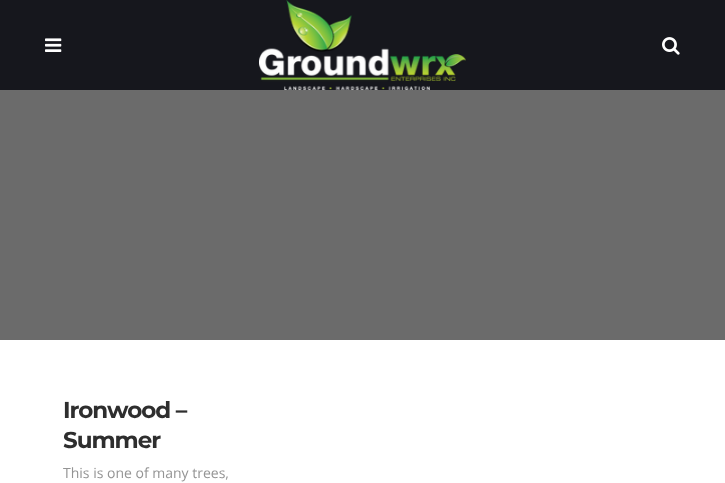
<!DOCTYPE html>
<meta charset="utf-8">
<style>body { margin: 0 } canvas { display: block }</style>
<canvas id="canvas" width="725" height="483"></canvas>
<script type="module">
  const canvas = document.getElementById("canvas");
  const ctx = canvas.getContext("2d");
  ctx.miterLimit = 4;
  ctx.fontKerning = "normal";
  async function loadImage(src) {
    const img = new Image();
    img.src = src;
    await img.decode();
    return img;
  }

  ctx.fillStyle = "#ffffff";
  ctx.fillRect(0, 0, 725, 483);
  ctx.fillStyle = "#16171d";
  ctx.fillRect(0, 0, 725, 90);
  ctx.drawImage(await loadImage("img1.png"), 45, 38, 17, 14);
  ctx.drawImage(await loadImage("img2.png"), 259, 0, 207, 90);
  ctx.drawImage(await loadImage("img3.png"), 662, 37, 18, 18);
  ctx.fillStyle = "#6b6b6b";
  ctx.fillRect(0, 90, 725, 250);
  ctx.letterSpacing = "-1px";
  ctx.font = "bold 23px Montserrat";
  ctx.fillStyle = "#2e2e2e";
  ctx.fillText("Ironwood –", 63, 418);
  ctx.fillText("Summer", 63, 448);
  ctx.letterSpacing = "0px";
  ctx.font = "14px Open Sans";
  ctx.fillStyle = "#949494";
  ctx.fillText("This is one of many trees,", 63, 478);
</script>
